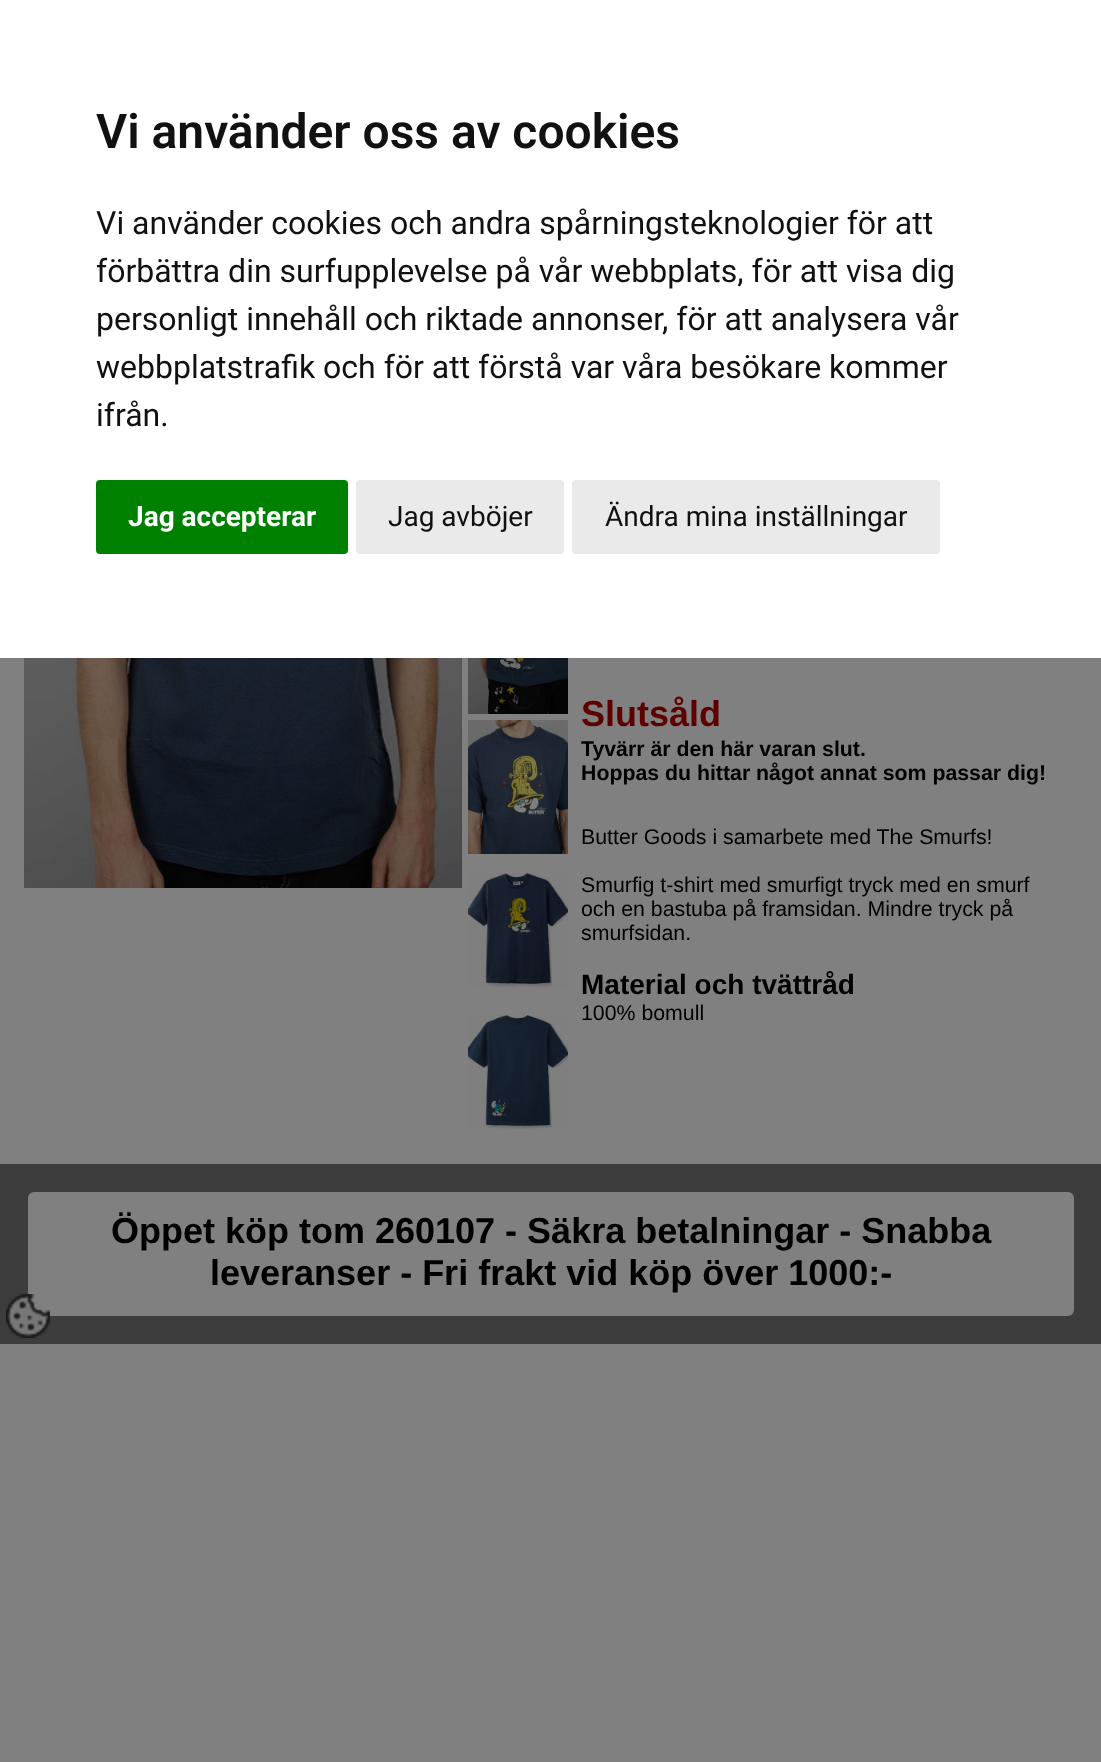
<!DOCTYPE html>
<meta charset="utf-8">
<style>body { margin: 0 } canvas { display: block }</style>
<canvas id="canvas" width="1101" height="1762"></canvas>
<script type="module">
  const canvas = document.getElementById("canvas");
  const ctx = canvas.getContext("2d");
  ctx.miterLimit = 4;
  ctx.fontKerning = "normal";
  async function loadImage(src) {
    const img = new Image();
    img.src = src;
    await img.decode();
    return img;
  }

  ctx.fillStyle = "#808080";
  ctx.fillRect(0, 0, 1101, 1762);
  ctx.fillStyle = "#ffffff";
  ctx.fillRect(0, 0, 1101, 658);
  ctx.font = "600 48px Roboto";
  ctx.fillStyle = "#111111";
  ctx.fillText("Vi använder oss av cookies", 96, 148);
  ctx.font = "32px Roboto";
  ctx.fillText("Vi använder cookies och andra spårningsteknologier för att", 96, 234);
  ctx.fillText("förbättra din surfupplevelse på vår webbplats, för att visa dig", 96, 282);
  ctx.fillText("personligt innehåll och riktade annonser, för att analysera vår", 96, 330);
  ctx.fillText("webbplatstrafik och för att förstå var våra besökare kommer", 96, 378);
  ctx.fillText("ifrån.", 96, 426);
  ctx.fillStyle = "#008000";
  ctx.beginPath();
  ctx.roundRect(96, 480, 252, 74, 4);
  ctx.fill();
  ctx.font = "bold 28px Roboto";
  ctx.fillStyle = "#ffffff";
  ctx.fillText("Jag accepterar", 128, 526);
  ctx.fillStyle = "#eaeaea";
  ctx.beginPath();
  ctx.roundRect(356, 480, 208, 74, 4);
  ctx.fill();
  ctx.font = "28px Roboto";
  ctx.fillStyle = "#111111";
  ctx.fillText("Jag avböjer", 388, 526);
  ctx.fillStyle = "#eaeaea";
  ctx.beginPath();
  ctx.roundRect(572, 480, 368, 74, 4);
  ctx.fill();
  ctx.fillStyle = "#111111";
  ctx.fillText("Ändra mina inställningar", 605, 526);
  ctx.drawImage(await loadImage("img1.png"), 24, 658, 438, 230);
  ctx.drawImage(await loadImage("img2.png"), 468, 658, 100, 56);
  ctx.drawImage(await loadImage("img3.png"), 468, 720, 100, 134);
  ctx.drawImage(await loadImage("img4.png"), 468, 873, 100, 115);
  ctx.drawImage(await loadImage("img5.png"), 468, 1015, 100, 114);
  ctx.font = "bold 36px Liberation Sans";
  ctx.fillStyle = "#5e0000";
  ctx.fillText("Slutsåld", 581, 726);
  ctx.font = "bold 21.3px Liberation Sans";
  ctx.fillStyle = "#000000";
  ctx.fillText("Tyvärr är den här varan slut.", 581, 756);
  ctx.fillText("Hoppas du hittar något annat som passar dig!", 581, 780);
  ctx.font = "21.3px Liberation Sans";
  ctx.fillText("Butter Goods i samarbete med The Smurfs!", 581, 844);
  ctx.fillText("Smurfig t-shirt med smurfigt tryck med en smurf", 581, 892);
  ctx.fillText("och en bastuba på framsidan. Mindre tryck på", 581, 916);
  ctx.fillText("smurfsidan.", 581, 940);
  ctx.font = "bold 28px Liberation Sans";
  ctx.fillText("Material och tvättråd", 581, 994);
  ctx.font = "21.3px Liberation Sans";
  ctx.fillText("100% bomull", 581, 1020);
  ctx.fillStyle = "#3d3d3d";
  ctx.fillRect(0, 1164, 1101, 180);
  ctx.fillStyle = "#808080";
  ctx.beginPath();
  ctx.roundRect(28, 1192, 1046, 124, 6);
  ctx.fill();
  ctx.font = "bold 36px Liberation Sans";
  ctx.fillStyle = "#000000";
  ctx.fillText("Öppet köp tom 260107 - Säkra betalningar - Snabba", 111, 1243);
  ctx.fillText("leveranser - Fri frakt vid köp över 1000:-", 210, 1285);
  ctx.drawImage(await loadImage("img6.png"), 6, 1294, 44, 44);
</script>
